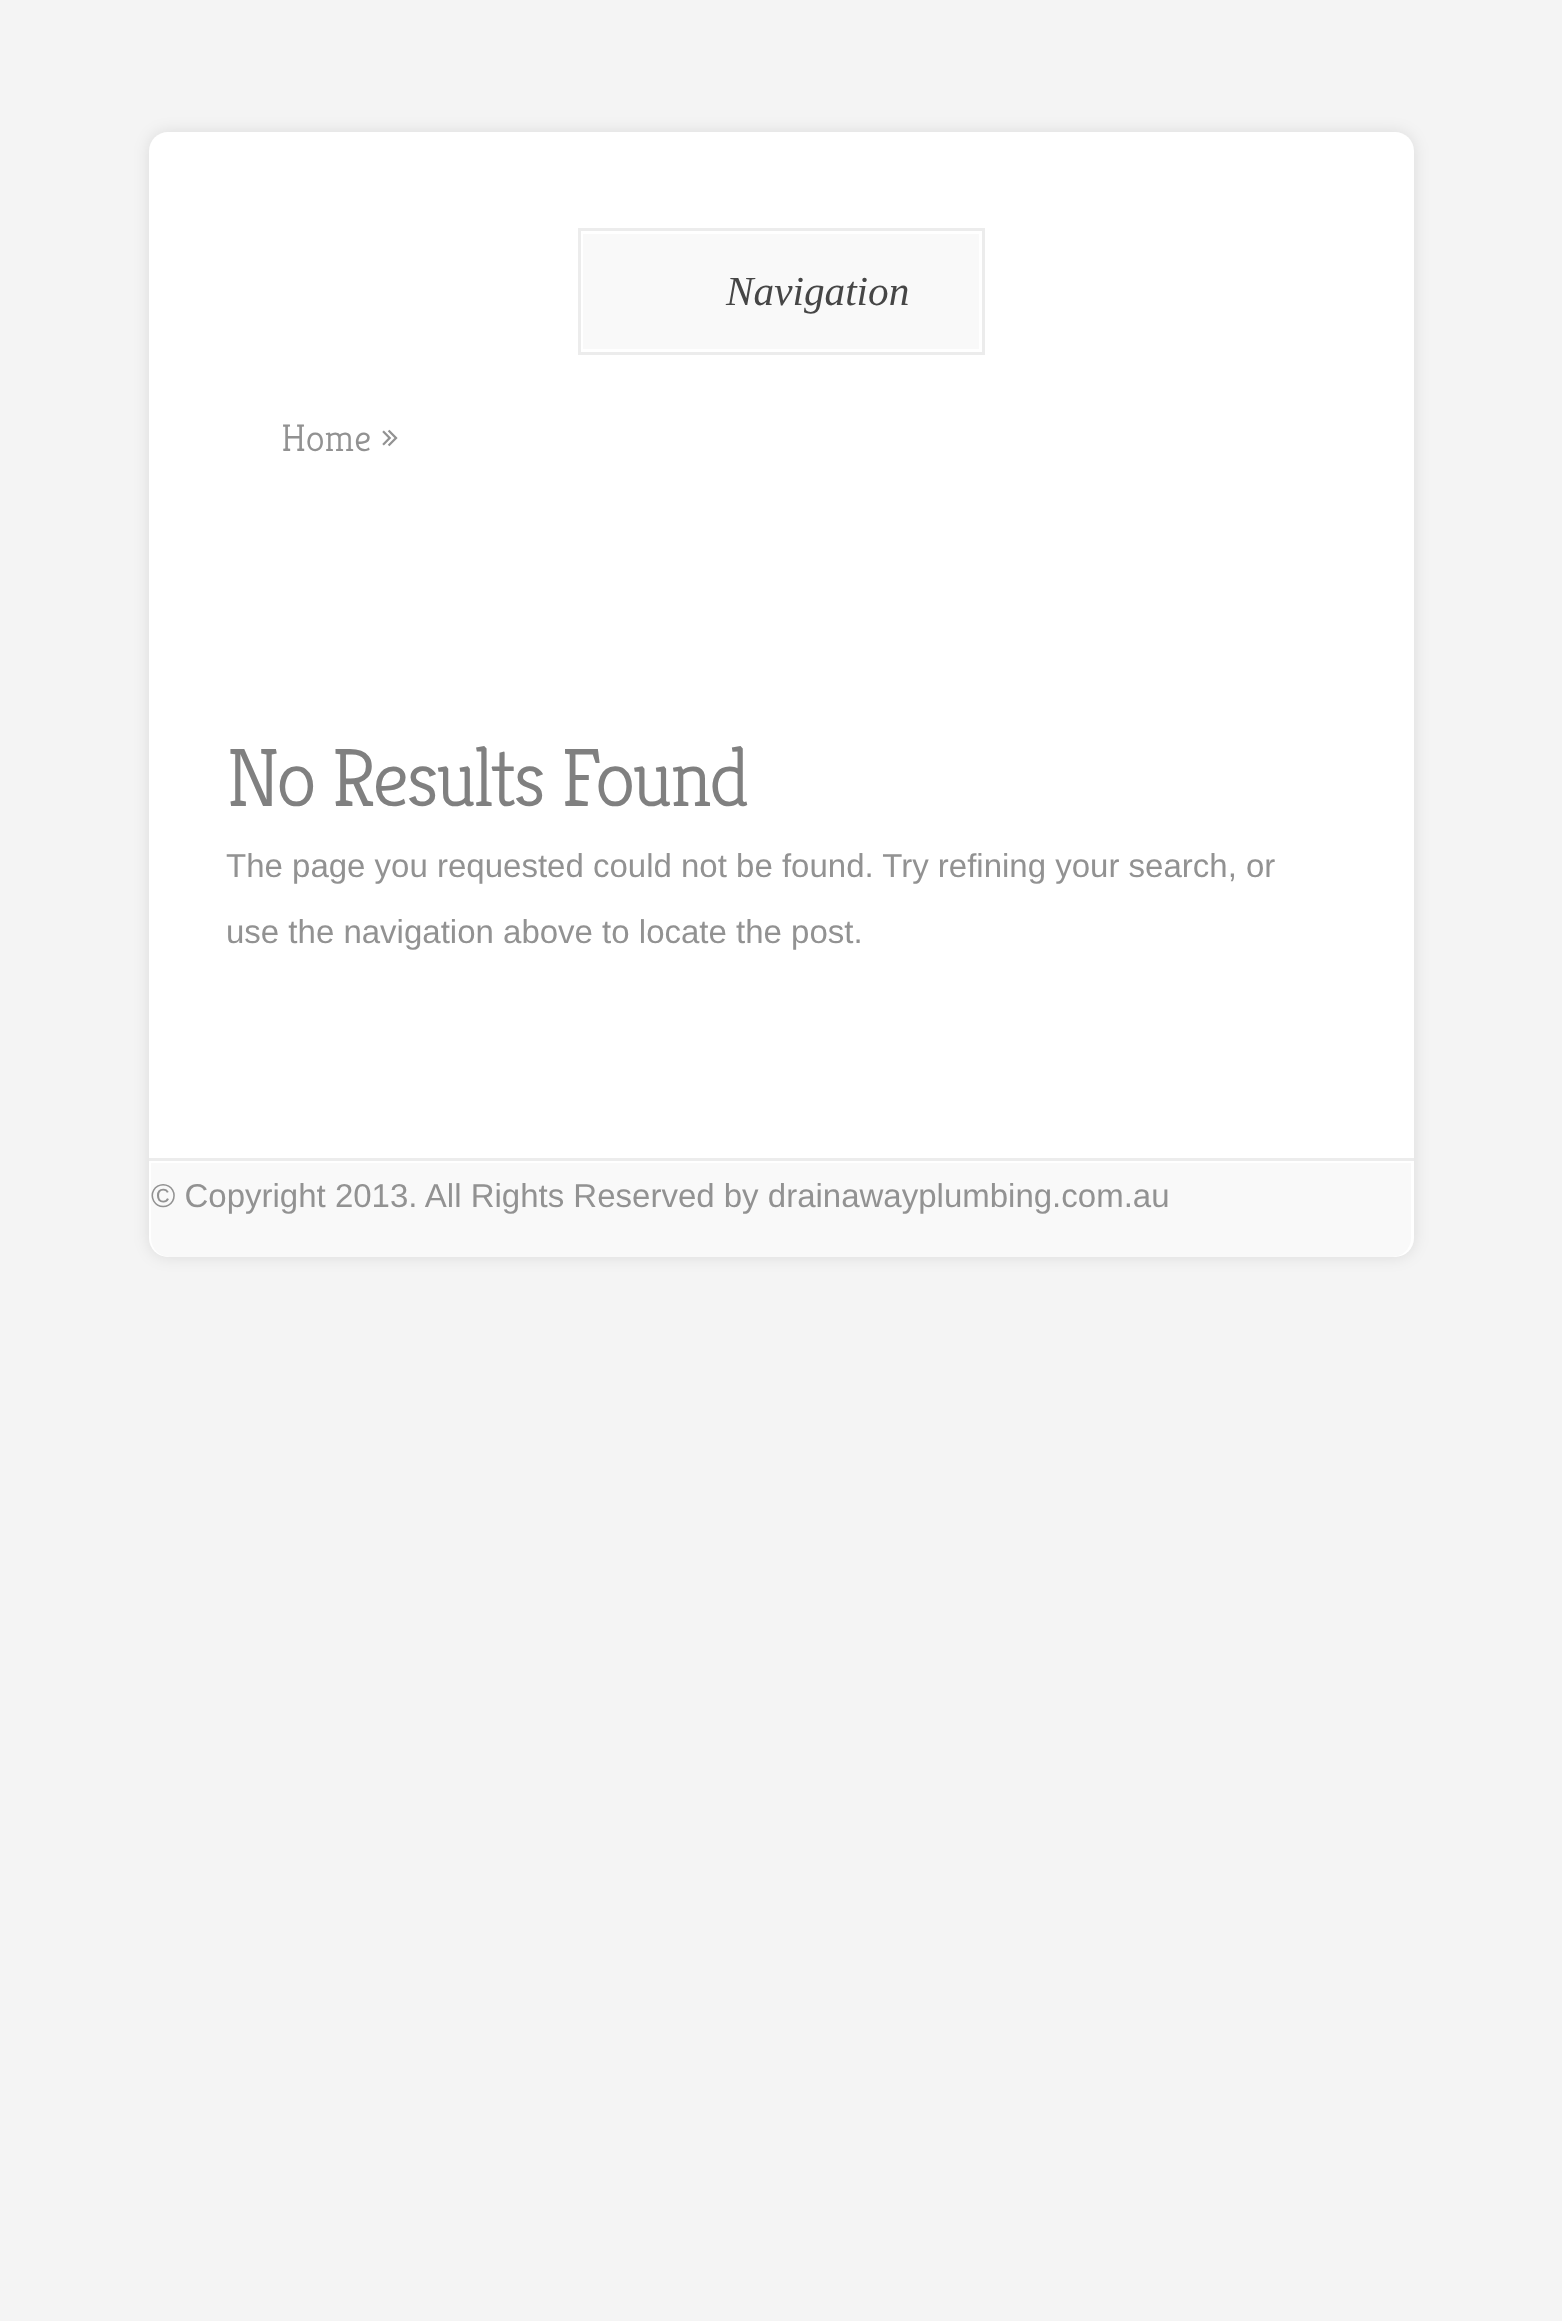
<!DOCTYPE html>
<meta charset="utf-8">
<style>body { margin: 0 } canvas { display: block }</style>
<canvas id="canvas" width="1562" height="2321"></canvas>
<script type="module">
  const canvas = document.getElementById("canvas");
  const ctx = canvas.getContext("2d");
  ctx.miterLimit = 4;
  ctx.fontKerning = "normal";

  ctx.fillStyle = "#f4f4f4";
  ctx.fillRect(0, 0, 1562, 2321);
  ctx.fillStyle = "rgba(0, 0, 0, 0.1)";
  ctx.filter = "blur(8px)";
  ctx.beginPath();
  ctx.roundRect(149, 132, 1265, 1125, 19);
  ctx.fill();
  ctx.filter = "none";
  ctx.fillStyle = "#ffffff";
  ctx.beginPath();
  ctx.roundRect(149, 132, 1265, 1125, 19);
  ctx.fill();
  ctx.fillStyle = "#f9f9f9";
  ctx.fillRect(583, 234, 396, 115);
  ctx.strokeStyle = "#ececec";
  ctx.lineWidth = 3;
  ctx.strokeRect(579.5, 229.5, 404, 124);
  ctx.font = "italic 41.25px Liberation Serif";
  ctx.fillStyle = "#464646";
  ctx.fillText("Navigation", 726, 305);
  ctx.font = "300 38.5px Kreon";
  ctx.fillStyle = "#929292";
  ctx.fillText("Home »", 281, 451);
  ctx.letterSpacing = "-2.75px";
  ctx.font = "300 82.5px Kreon";
  ctx.fillStyle = "#808080";
  ctx.fillText("No Results Found", 226, 806);
  ctx.letterSpacing = "0px";
  ctx.font = "33px Liberation Sans";
  ctx.fillStyle = "#929292";
  ctx.fillText("The page you requested could not be found. Try refining your search, or", 226, 877);
  ctx.fillText("use the navigation above to locate the post.", 226, 943);
  ctx.fillStyle = "#ececec";
  ctx.fillRect(149, 1158, 1265, 3);
  ctx.fillStyle = "#f9f9f9";
  ctx.beginPath();
  ctx.roundRect(151, 1163, 1260, 94, [0, 0, 19, 19]);
  ctx.fill();
  ctx.fillStyle = "#929292";
  ctx.fillText("© Copyright 2013. All Rights Reserved by drainawayplumbing.com.au", 151, 1207);
</script>
